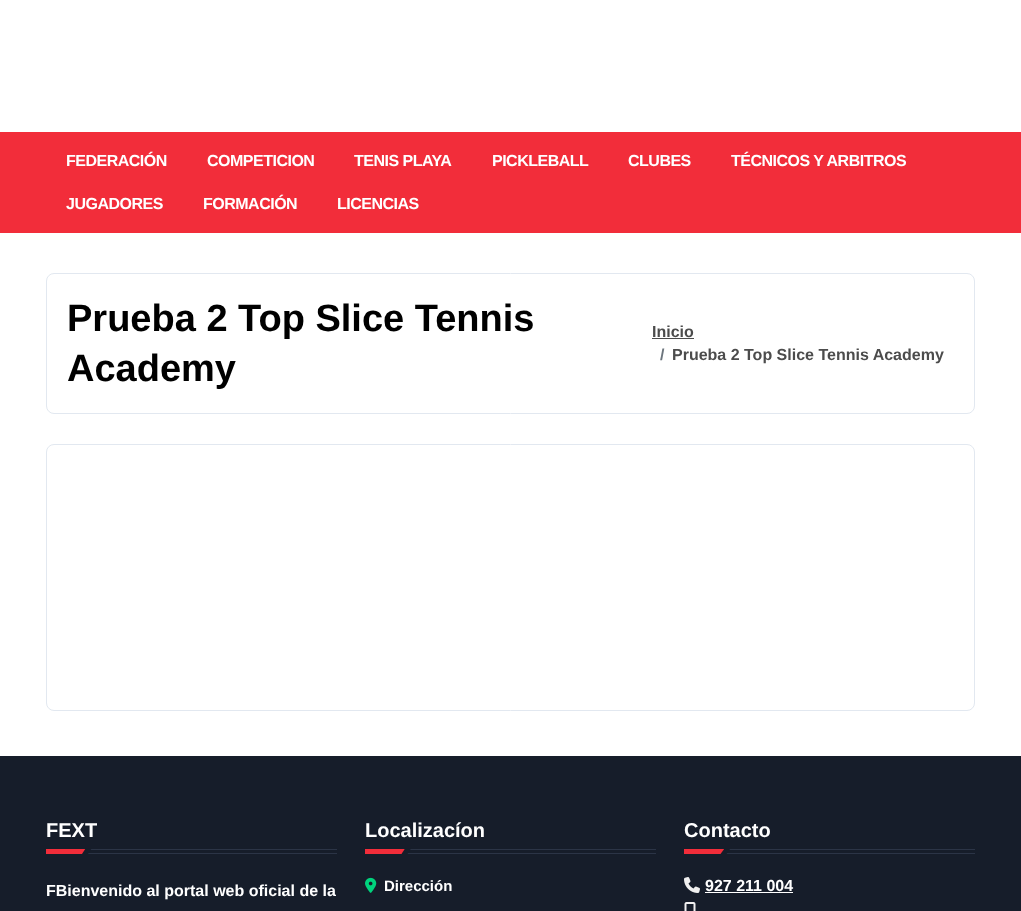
<!DOCTYPE html>
<meta charset="utf-8">
<style>body { margin: 0 } canvas { display: block }</style>
<canvas id="canvas" width="1021" height="911"></canvas>
<script type="module">
  const canvas = document.getElementById("canvas");
  const ctx = canvas.getContext("2d");
  ctx.miterLimit = 4;
  ctx.fontKerning = "normal";
  async function loadImage(src) {
    const img = new Image();
    img.src = src;
    await img.decode();
    return img;
  }

  ctx.fillStyle = "#ffffff";
  ctx.fillRect(0, 0, 1021, 911);
  ctx.fillStyle = "#f22d3a";
  ctx.fillRect(0, 132, 1021, 101);
  ctx.letterSpacing = "-0.5px";
  ctx.font = "bold 16px Liberation Sans";
  ctx.fillStyle = "#ffffff";
  ctx.fillText("FEDERACIÓN", 66, 166);
  ctx.fillText("COMPETICION", 207, 166);
  ctx.fillText("TENIS PLAYA", 354, 166);
  ctx.fillText("PICKLEBALL", 492, 166);
  ctx.fillText("CLUBES", 628, 166);
  ctx.fillText("TÉCNICOS Y ARBITROS", 731, 166);
  ctx.fillText("JUGADORES", 66, 209);
  ctx.fillText("FORMACIÓN", 203, 209);
  ctx.fillText("LICENCIAS", 337, 209);
  ctx.beginPath();
  ctx.roundRect(46.5, 273.5, 928, 140, 7.5);
  ctx.strokeStyle = "#e2e8f0";
  ctx.stroke();
  ctx.letterSpacing = "0px";
  ctx.font = "bold 38px Liberation Sans";
  ctx.fillStyle = "#000000";
  ctx.fillText("Prueba 2 Top Slice Tennis", 67, 331);
  ctx.fillText("Academy", 67, 381);
  ctx.font = "bold 16px Liberation Sans";
  ctx.fillStyle = "#4c4c4c";
  ctx.fillText("Inicio", 652, 337);
  ctx.fillRect(652, 338, 42, 1);
  ctx.fillStyle = "#6c757d";
  ctx.fillText("/", 660, 360);
  ctx.fillStyle = "#4c4c4c";
  ctx.fillText("Prueba 2 Top Slice Tennis Academy", 672, 360);
  ctx.beginPath();
  ctx.roundRect(46.5, 444.5, 928, 266, 7.5);
  ctx.stroke();
  ctx.fillStyle = "#161d2a";
  ctx.fillRect(0, 756, 1021, 155);
  ctx.font = "bold 20px Liberation Sans";
  ctx.fillStyle = "#ffffff";
  ctx.fillText("FEXT", 46, 837);
  ctx.fillStyle = "#2b3446";
  ctx.fillRect(90, 849, 247, 1);
  ctx.fillRect(88, 853, 249, 1);
  ctx.fillStyle = "#f22d3a";
  ctx.fillRect(46, 849, 40, 5);
  ctx.fillStyle = "#161d2a";
  ctx.beginPath();
  ctx.moveTo(85.5, 848.5);
  ctx.lineTo(91.5, 848.5);
  ctx.lineTo(88, 854);
  ctx.lineTo(82, 854);
  ctx.closePath();
  ctx.fill();
  ctx.font = "bold 16px Liberation Sans";
  ctx.fillStyle = "#ffffff";
  ctx.fillText("FBienvenido al portal web oficial de la", 46, 896);
  ctx.font = "bold 20px Liberation Sans";
  ctx.fillText("Localizacíon", 365, 837);
  ctx.fillStyle = "#2b3446";
  ctx.fillRect(410, 849, 246, 1);
  ctx.fillRect(407, 853, 249, 1);
  ctx.fillStyle = "#f22d3a";
  ctx.fillRect(365, 849, 40, 5);
  ctx.fillStyle = "#161d2a";
  ctx.beginPath();
  ctx.moveTo(405, 848.5);
  ctx.lineTo(411, 848.5);
  ctx.lineTo(407.5, 854);
  ctx.lineTo(401.5, 854);
  ctx.closePath();
  ctx.fill();
  ctx.drawImage(await loadImage("img1.png"), 365, 877, 12, 16);
  ctx.font = "bold 15px Liberation Sans";
  ctx.fillStyle = "#ffffff";
  ctx.fillText("Dirección", 384, 891);
  ctx.font = "bold 20px Liberation Sans";
  ctx.fillText("Contacto", 684, 837);
  ctx.fillStyle = "#2b3446";
  ctx.fillRect(724, 849, 251, 1);
  ctx.fillRect(726, 853, 249, 1);
  ctx.fillStyle = "#f22d3a";
  ctx.fillRect(684, 849, 40, 5);
  ctx.fillStyle = "#161d2a";
  ctx.beginPath();
  ctx.moveTo(724.5, 848.5);
  ctx.lineTo(730, 848.5);
  ctx.lineTo(730, 849);
  ctx.lineTo(726.5, 854);
  ctx.lineTo(720.5, 854);
  ctx.closePath();
  ctx.fill();
  ctx.drawImage(await loadImage("img2.png"), 684, 877, 16, 16);
  ctx.font = "bold 16px Liberation Sans";
  ctx.fillStyle = "#ffffff";
  ctx.fillText("927 211 004", 705, 891);
  ctx.fillRect(705, 892, 88, 1);
  ctx.drawImage(await loadImage("img3.png"), 684, 902, 12, 9);
</script>
